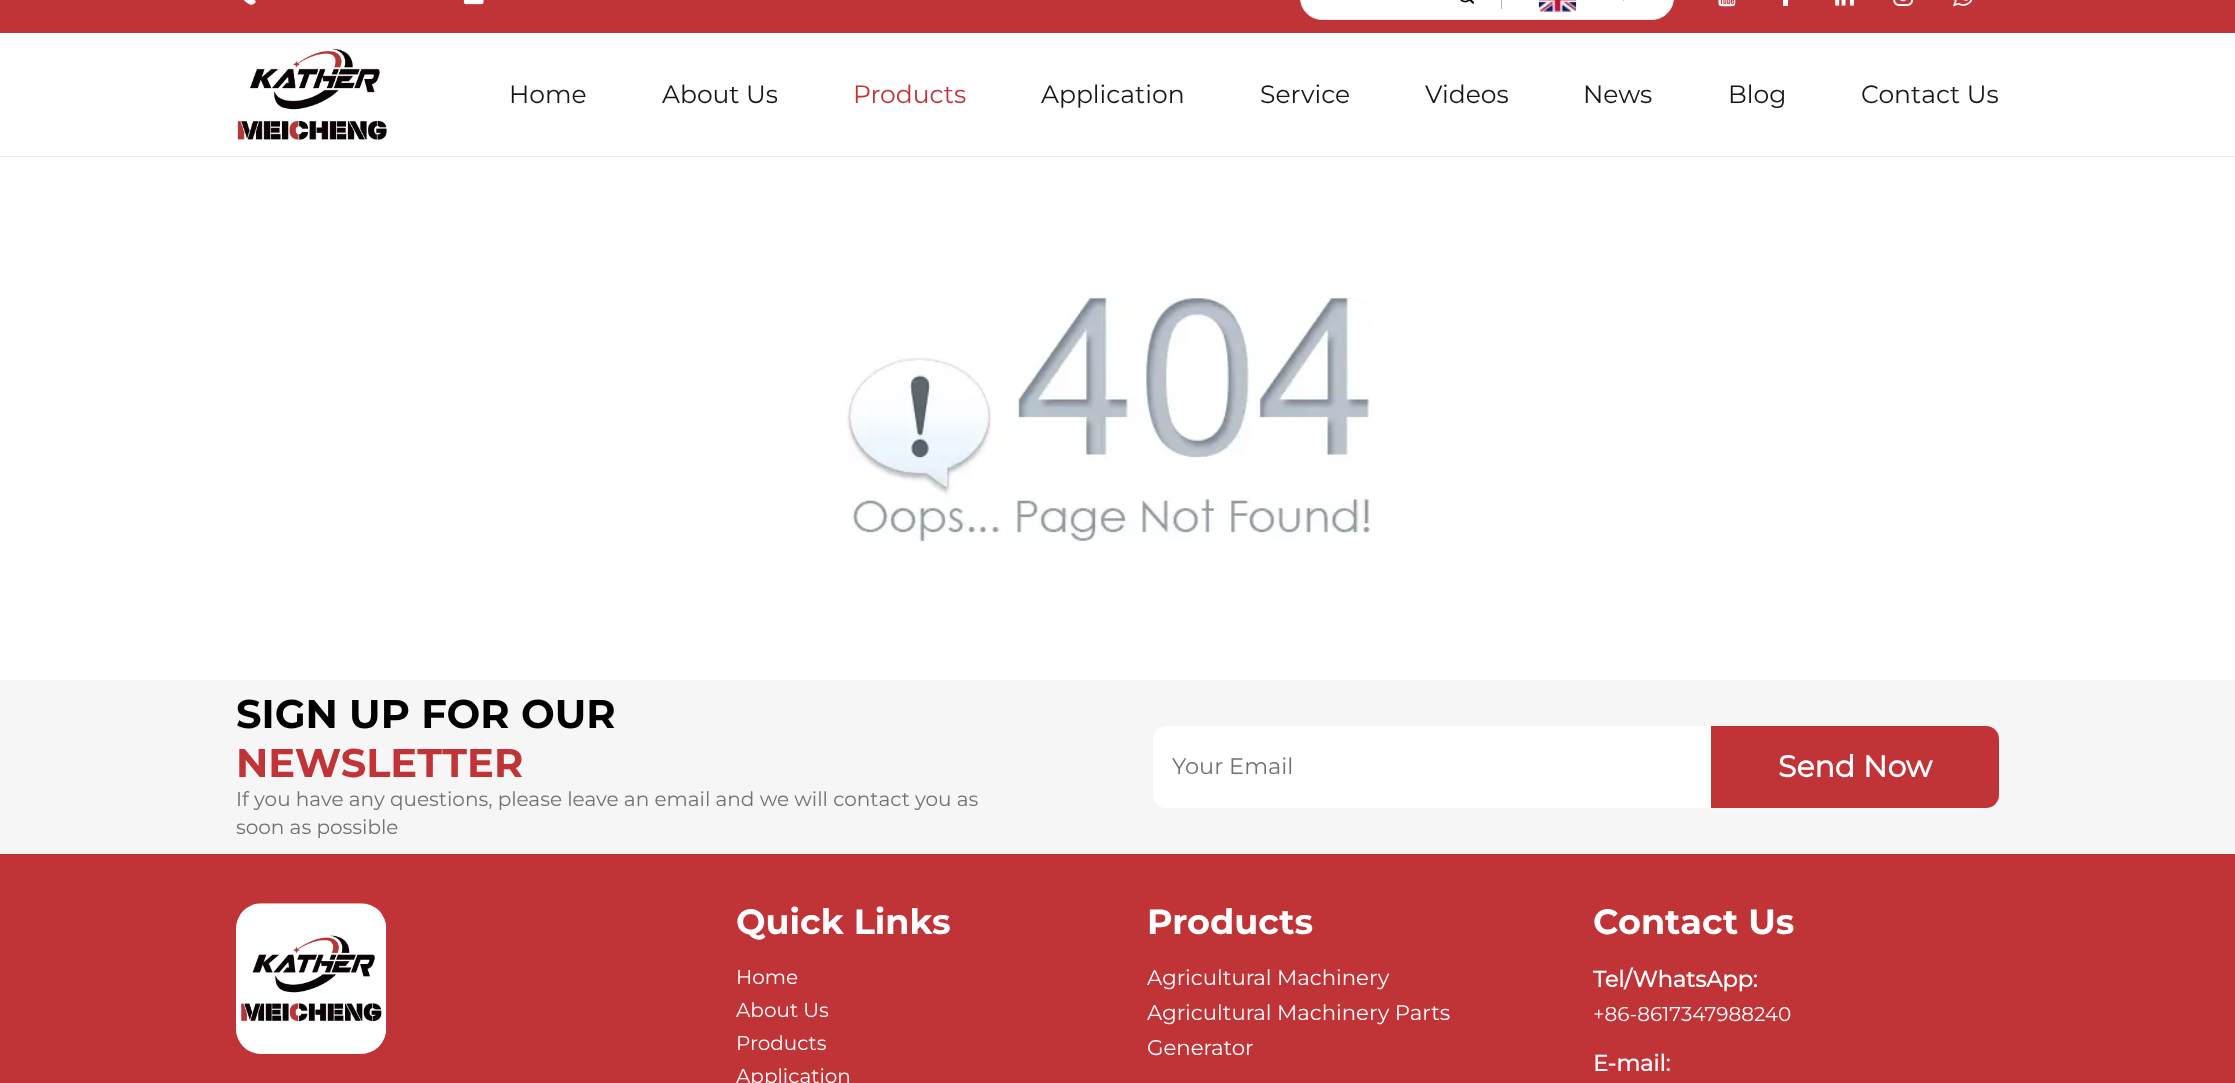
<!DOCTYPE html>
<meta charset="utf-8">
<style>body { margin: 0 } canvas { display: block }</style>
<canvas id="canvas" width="2235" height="1083"></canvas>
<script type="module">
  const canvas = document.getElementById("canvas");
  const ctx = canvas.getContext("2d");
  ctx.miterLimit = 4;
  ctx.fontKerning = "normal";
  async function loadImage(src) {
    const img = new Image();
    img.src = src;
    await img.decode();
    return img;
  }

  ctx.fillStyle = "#ffffff";
  ctx.fillRect(0, 0, 2235, 1083);
  ctx.fillStyle = "#c03337";
  ctx.fillRect(0, 0, 2235, 33);
  ctx.drawImage(await loadImage("img1.png"), 243, 0, 13, 5);
  ctx.drawImage(await loadImage("img2.png"), 463, 0, 21, 5);
  ctx.fillStyle = "#ffffff";
  ctx.beginPath();
  ctx.roundRect(1300.5, -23.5, 373, 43, 22);
  ctx.fill();
  ctx.strokeStyle = "#e9e9e9";
  ctx.stroke();
  ctx.drawImage(await loadImage("img3.png"), 1460, 0, 14, 4);
  ctx.fillStyle = "#b0b0b0";
  ctx.fillRect(1501, 0, 1, 9);
  ctx.drawImage(await loadImage("img4.png"), 1538, 0, 39, 12);
  ctx.fillStyle = "#c9c9c9";
  ctx.fillRect(1623, 0, 1, 1);
  ctx.drawImage(await loadImage("img5.png"), 1718, 0, 18, 7);
  ctx.fillStyle = "#ffffff";
  ctx.fillRect(1783, 0, 5, 6);
  ctx.drawImage(await loadImage("img6.png"), 1835, 0, 19, 6);
  ctx.drawImage(await loadImage("img7.png"), 1893, 0, 21, 7);
  ctx.drawImage(await loadImage("img8.png"), 1953, 0, 20, 7);
  ctx.fillStyle = "#e9e9e9";
  ctx.fillRect(0, 156, 2235, 1);
  ctx.drawImage(await loadImage("img9.png"), 237, 48, 150, 92);
  ctx.font = "25px Montserrat";
  ctx.fillStyle = "#181717";
  ctx.fillText("Home", 509, 103);
  ctx.fillText("About Us", 662, 103);
  ctx.fillStyle = "#c03337";
  ctx.fillText("Products", 853, 103);
  ctx.fillStyle = "#181717";
  ctx.fillText("Application", 1041, 103);
  ctx.fillText("Service", 1260, 103);
  ctx.fillText("Videos", 1425, 103);
  ctx.fillText("News", 1583, 103);
  ctx.fillText("Blog", 1728, 103);
  ctx.fillText("Contact Us", 1861, 103);
  ctx.drawImage(await loadImage("img10.png"), 846, 297, 526, 245);
  ctx.fillStyle = "#f6f6f6";
  ctx.fillRect(0, 680, 2235, 174);
  ctx.font = "bold 40px Montserrat";
  ctx.fillStyle = "#000000";
  ctx.fillText("SIGN UP FOR OUR", 236, 728);
  ctx.fillStyle = "#c03337";
  ctx.fillText("NEWSLETTER", 236, 777);
  ctx.font = "20px Montserrat";
  ctx.fillStyle = "#717171";
  ctx.fillText("If you have any questions, please leave an email and we will contact you as", 236, 806);
  ctx.fillText("soon as possible", 236, 834);
  ctx.fillStyle = "#ffffff";
  ctx.beginPath();
  ctx.roundRect(1153, 726, 558, 82, [13, 0, 0, 13]);
  ctx.fill();
  ctx.font = "22.5px Montserrat";
  ctx.fillStyle = "#717171";
  ctx.fillText("Your Email", 1172, 774);
  ctx.fillStyle = "#c03337";
  ctx.beginPath();
  ctx.roundRect(1711, 726, 288, 82, [0, 13, 13, 0]);
  ctx.fill();
  ctx.font = "bold 30px 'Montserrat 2'";
  ctx.fillStyle = "#ffffff";
  ctx.fillText("Send Now", 1778, 777);
  ctx.fillStyle = "#c03337";
  ctx.fillRect(0, 854, 2235, 229);
  ctx.fillStyle = "#ffffff";
  ctx.beginPath();
  ctx.roundRect(236, 904, 150, 150, 25);
  ctx.fill();
  ctx.drawImage(await loadImage("img11.png"), 236, 903, 151, 147);
  ctx.font = "bold 35px Montserrat";
  ctx.fillText("Quick Links", 736, 934);
  ctx.font = "20px Montserrat";
  ctx.fillText("Home", 736, 984);
  ctx.fillText("About Us", 736, 1017);
  ctx.fillText("Products", 736, 1050);
  ctx.fillText("Application", 736, 1083);
  ctx.font = "bold 35px Montserrat";
  ctx.fillText("Products", 1147, 934);
  ctx.font = "21.25px Montserrat";
  ctx.fillText("Agricultural Machinery", 1147, 985);
  ctx.fillText("Agricultural Machinery Parts", 1147, 1020);
  ctx.fillText("Generator", 1147, 1055);
  ctx.font = "bold 35px Montserrat";
  ctx.fillText("Contact Us", 1593, 934);
  ctx.font = "bold 22.5px 'Montserrat 2'";
  ctx.fillText("Tel/WhatsApp:", 1593, 987);
  ctx.font = "20px Montserrat";
  ctx.fillText("+86-8617347988240", 1593, 1021);
  ctx.font = "bold 22.5px 'Montserrat 2'";
  ctx.fillText("E-mail:", 1593, 1071);
</script>
